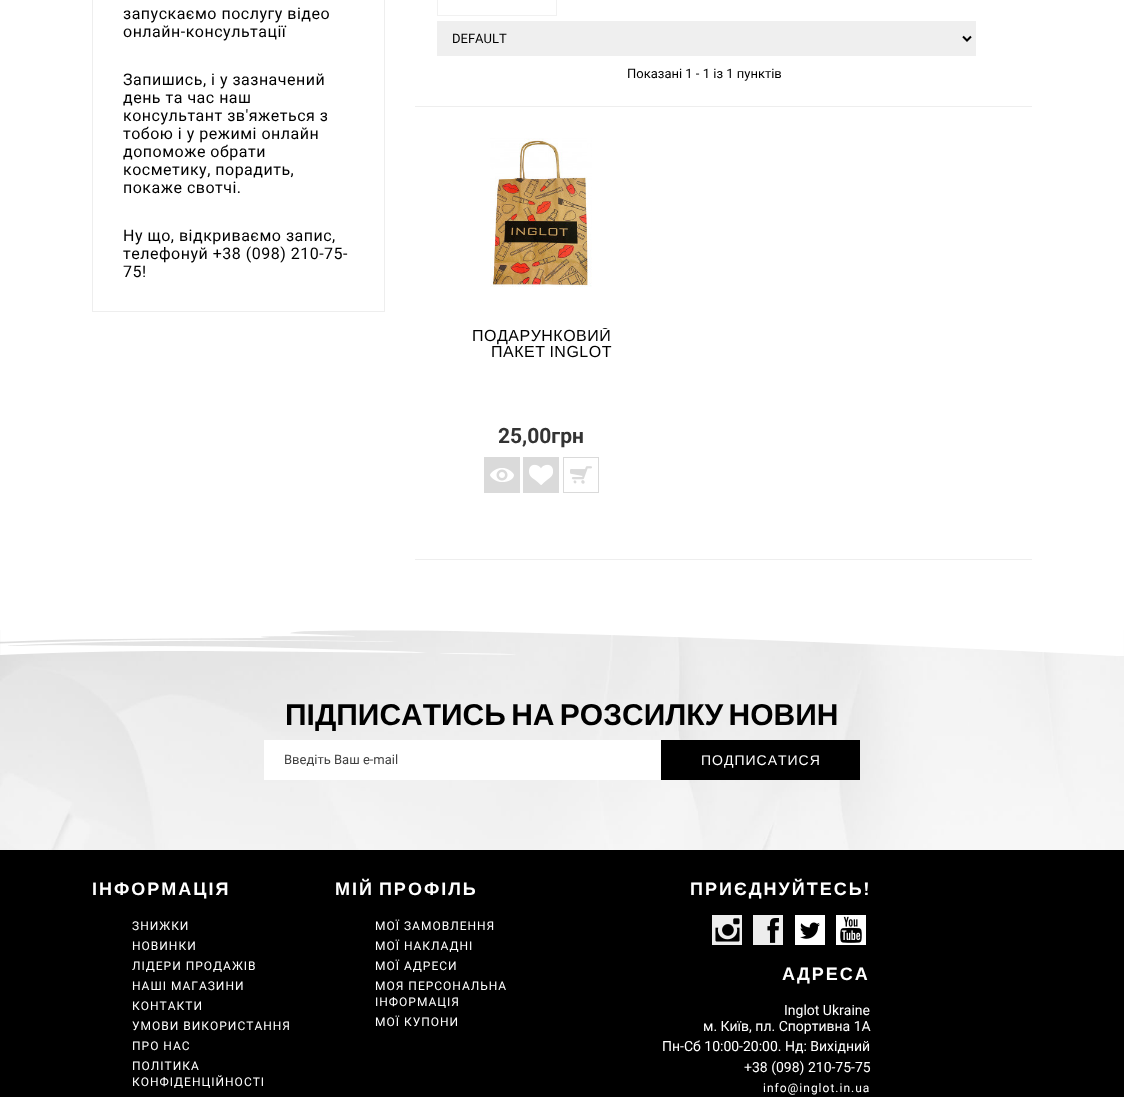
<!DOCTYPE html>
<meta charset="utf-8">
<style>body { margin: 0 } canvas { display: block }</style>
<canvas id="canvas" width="1124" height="1097"></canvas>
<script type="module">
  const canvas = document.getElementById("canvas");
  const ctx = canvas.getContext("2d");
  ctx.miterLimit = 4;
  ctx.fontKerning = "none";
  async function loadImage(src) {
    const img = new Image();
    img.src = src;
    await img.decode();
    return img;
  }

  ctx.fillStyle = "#ffffff";
  ctx.fillRect(0, 0, 1124, 1097);
  ctx.strokeStyle = "#eeeeee";
  ctx.strokeRect(92.5, -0.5, 292, 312);
  ctx.letterSpacing = "0.5px";
  ctx.font = "16px Roboto";
  ctx.fillStyle = "#000000";
  ctx.fillText("запускаємо послугу відео", 123, 19);
  ctx.fillText("онлайн-консультації", 123, 37);
  ctx.fillText("Запишись, і у зазначений", 123, 85);
  ctx.fillText("день та час наш", 123, 103);
  ctx.fillText("консультант зв'яжеться з", 123, 121);
  ctx.fillText("тобою і у режимі онлайн", 123, 139);
  ctx.fillText("допоможе обрати", 123, 157);
  ctx.fillText("косметику, порадить,", 123, 175);
  ctx.fillText("покаже свотчі.", 123, 193);
  ctx.fillText("Ну що, відкриваємо запис,", 123, 241);
  ctx.fillText("телефонуй +38 (098) 210-75-", 123, 259);
  ctx.fillText("75!", 123, 277);
  ctx.fillStyle = "#eeeeee";
  ctx.fillRect(415, 106, 617, 1);
  ctx.strokeStyle = "#f1f1f1";
  ctx.strokeRect(437.5, -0.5, 119, 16);
  ctx.fillStyle = "#efefef";
  ctx.fillRect(437, 21, 539, 35);
  ctx.beginPath();
  ctx.moveTo(963, 36.5);
  ctx.lineTo(967, 40.5);
  ctx.lineTo(971, 36.5);
  ctx.strokeStyle = "#000000";
  ctx.lineWidth = 2;
  ctx.stroke();
  ctx.letterSpacing = "0px";
  ctx.font = "13px Roboto";
  ctx.fillStyle = "#000000";
  ctx.fillText("DEFAULT", 452, 43);
  ctx.fillText("Показані 1 - 1 із 1 пунктів", 627, 78);
  ctx.drawImage(await loadImage("img1.png"), 490, 138, 102, 149);
  ctx.save();
  ctx.beginPath();
  ctx.rect(456, 328, 171, 32);
  ctx.clip();
  ctx.letterSpacing = "0.5px";
  ctx.font = "16px Liberation Sans";
  ctx.fillText("ПОДАРУНКОВИЙ", 472, 341);
  ctx.restore();
  ctx.letterSpacing = "0.5px";
  ctx.wordSpacing = "-1px";
  ctx.font = "16px Liberation Sans";
  ctx.fillText("ПАКЕТ INGLOT", 491, 357);
  ctx.letterSpacing = "0px";
  ctx.wordSpacing = "0px";
  ctx.font = "bold 21px Roboto";
  ctx.fillStyle = "#333333";
  ctx.fillText("25,00грн", 498, 443);
  ctx.fillStyle = "#dadada";
  ctx.fillRect(484, 457, 36, 36);
  ctx.drawImage(await loadImage("img2.png"), 490, 468, 24, 14);
  ctx.fillRect(523, 457, 36, 36);
  ctx.drawImage(await loadImage("img3.png"), 529, 464, 24, 21);
  ctx.strokeStyle = "#dadada";
  ctx.lineWidth = 1;
  ctx.strokeRect(563.5, 457.5, 35, 35);
  ctx.drawImage(await loadImage("img4.png"), 570, 466, 22, 18);
  ctx.fillStyle = "#eeeeee";
  ctx.fillRect(415, 559, 617, 1);
  ctx.drawImage(await loadImage("img5.png"), 0, 630, 1124, 220);
  ctx.drawImage(await loadImage("img6.png"), 0, 630, 1124, 26);
  ctx.wordSpacing = "-3px";
  ctx.font = "bold 30px Liberation Sans";
  ctx.fillStyle = "#000000";
  ctx.fillText("ПІДПИСАТИСЬ НА РОЗСИЛКУ НОВИН", 285, 725);
  ctx.fillStyle = "#ffffff";
  ctx.fillRect(264, 740, 397, 40);
  ctx.wordSpacing = "0px";
  ctx.font = "13px Roboto";
  ctx.fillStyle = "#424242";
  ctx.fillText("Введіть Ваш e-mail", 284, 764);
  ctx.fillStyle = "#000000";
  ctx.fillRect(661, 740, 199, 40);
  ctx.letterSpacing = "1px";
  ctx.font = "14px Liberation Sans";
  ctx.fillStyle = "#ffffff";
  ctx.fillText("ПОДПИСАТИСЯ", 701, 765);
  ctx.fillStyle = "#000000";
  ctx.fillRect(0, 850, 1124, 247);
  ctx.letterSpacing = "2px";
  ctx.font = "bold 18px Liberation Sans";
  ctx.fillStyle = "#ffffff";
  ctx.fillText("ІНФОРМАЦІЯ", 92, 895);
  ctx.letterSpacing = "1px";
  ctx.font = "12px Roboto";
  ctx.fillText("ЗНИЖКИ", 132, 930);
  ctx.fillText("НОВИНКИ", 132, 950);
  ctx.fillText("ЛІДЕРИ ПРОДАЖІВ", 132, 970);
  ctx.fillText("НАШІ МАГАЗИНИ", 132, 990);
  ctx.fillText("КОНТАКТИ", 132, 1010);
  ctx.fillText("УМОВИ ВИКОРИСТАННЯ", 132, 1030);
  ctx.fillText("ПРО НАС", 132, 1050);
  ctx.fillText("ПОЛІТИКА", 132, 1070);
  ctx.fillText("КОНФІДЕНЦІЙНОСТІ", 132, 1086);
  ctx.letterSpacing = "2px";
  ctx.wordSpacing = "-2px";
  ctx.font = "bold 18px Liberation Sans";
  ctx.fillText("МІЙ ПРОФІЛЬ", 335, 895);
  ctx.letterSpacing = "1px";
  ctx.wordSpacing = "0px";
  ctx.font = "12px Roboto";
  ctx.fillText("МОЇ ЗАМОВЛЕННЯ", 375, 930);
  ctx.fillText("МОЇ НАКЛАДНІ", 375, 950);
  ctx.fillText("МОЇ АДРЕСИ", 375, 970);
  ctx.fillText("МОЯ ПЕРСОНАЛЬНА", 375, 990);
  ctx.fillText("ІНФОРМАЦІЯ", 375, 1006);
  ctx.fillText("МОЇ КУПОНИ", 375, 1026);
  ctx.letterSpacing = "2px";
  ctx.font = "bold 18px Liberation Sans";
  ctx.fillText("ПРИЄДНУЙТЕСЬ", 690, 895);
  ctx.font = "bold 18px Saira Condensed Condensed";
  ctx.fillText("!", 864, 895);
  ctx.drawImage(await loadImage("img7.png"), 712, 915, 30, 30);
  ctx.drawImage(await loadImage("img8.png"), 753, 915, 30, 30);
  ctx.drawImage(await loadImage("img9.png"), 795, 915, 30, 30);
  ctx.drawImage(await loadImage("img10.png"), 836, 915, 30, 30);
  ctx.font = "bold 18px Liberation Sans";
  ctx.fillText("АДРЕСА", 782, 980);
  ctx.letterSpacing = "0px";
  ctx.font = "14px Roboto";
  ctx.fillText("Inglot Ukraine", 784, 1015);
  ctx.fillText("м. Київ, пл. Спортивна 1А", 703, 1031);
  ctx.fillText("Пн-Сб 10:00-20:00. Нд: Вихідний", 662, 1051);
  ctx.fillText("+38 (098) 210-75-75", 744, 1072);
  ctx.letterSpacing = "1px";
  ctx.font = "12px Roboto";
  ctx.fillText("info@inglot.in.ua", 763, 1092);
</script>
